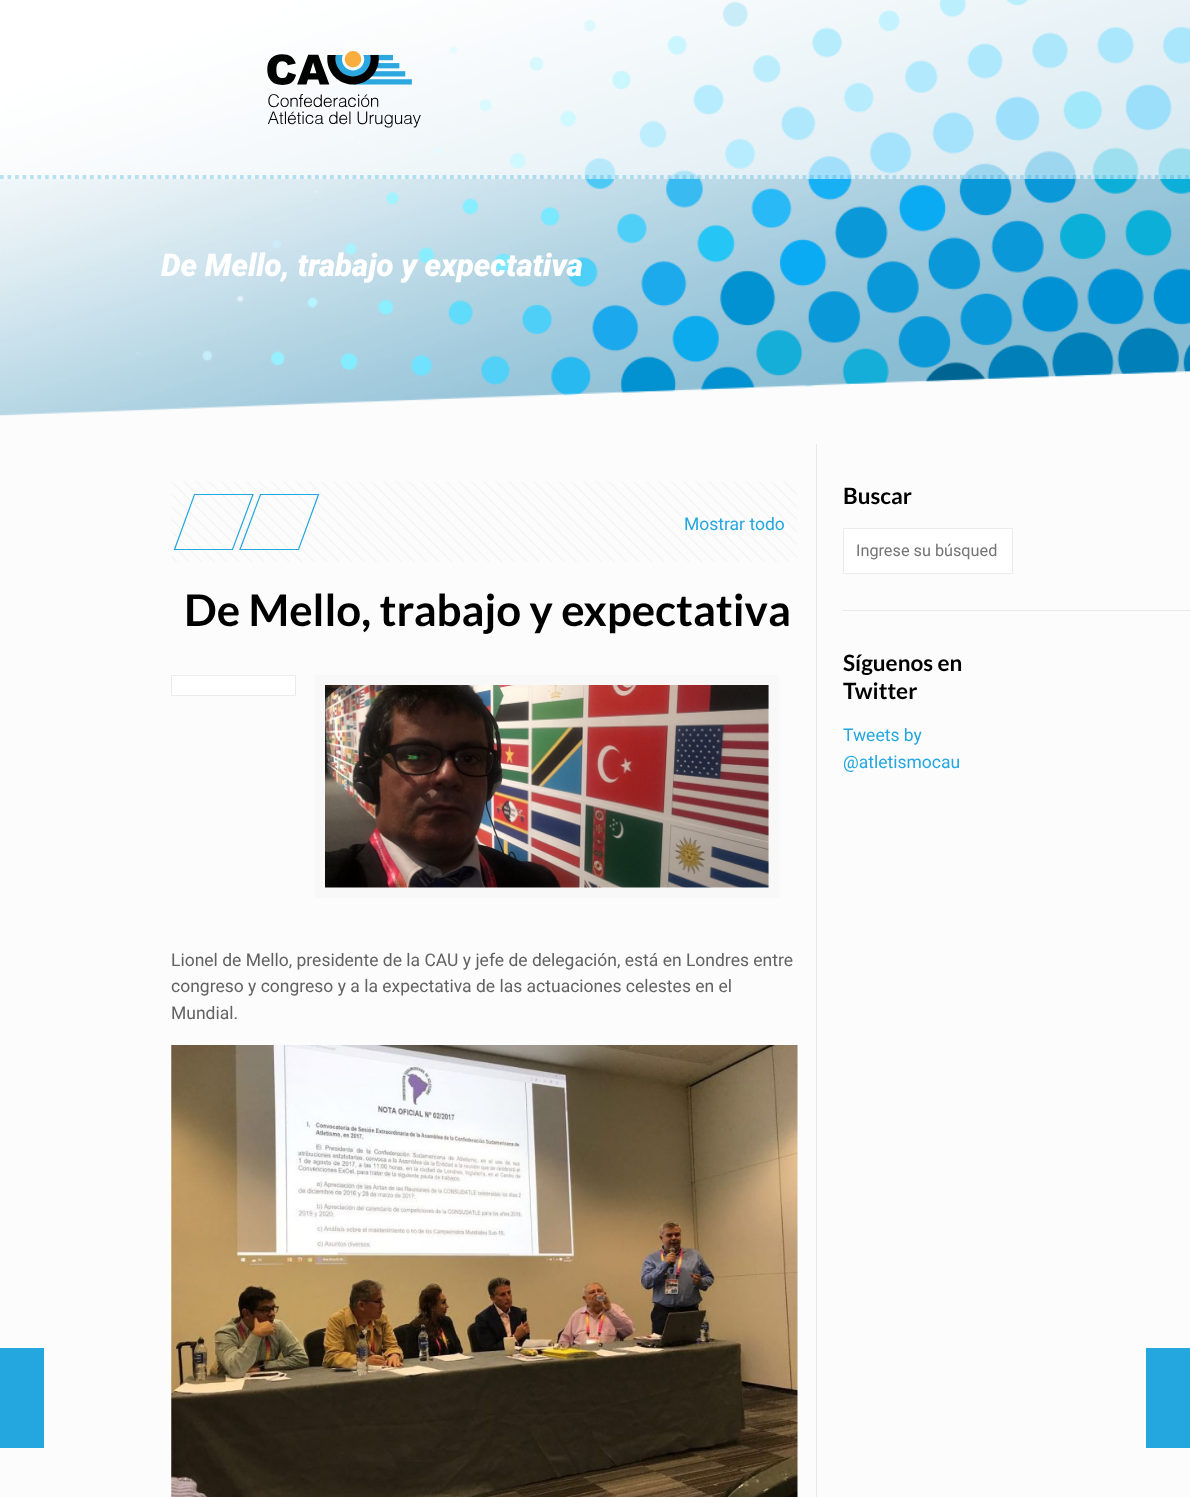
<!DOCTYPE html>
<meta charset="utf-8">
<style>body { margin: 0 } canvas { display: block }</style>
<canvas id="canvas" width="1190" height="1497"></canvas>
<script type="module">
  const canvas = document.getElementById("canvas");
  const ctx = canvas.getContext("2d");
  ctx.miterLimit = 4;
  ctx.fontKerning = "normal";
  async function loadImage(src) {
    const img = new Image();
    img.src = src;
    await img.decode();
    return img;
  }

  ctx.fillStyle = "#fcfcfc";
  ctx.fillRect(0, 0, 1190, 1497);
  ctx.drawImage(await loadImage("img1.png"), 0, 0, 1190, 416);
  ctx.fillStyle = "rgba(255, 255, 255, 0.6)";
  ctx.fillRect(0, 0, 1190, 179);
  ctx.beginPath();
  ctx.moveTo(0, 177);
  ctx.lineTo(1190, 177);
  ctx.strokeStyle = "rgba(36, 167, 223, 0.3)";
  ctx.lineWidth = 3.8;
  ctx.setLineDash([3.75, 3.75]);
  ctx.stroke();
  ctx.drawImage(await loadImage("img2.png"), 267, 51, 154, 77);
  ctx.font = "italic 900 31.25px Roboto";
  ctx.fillStyle = "#ffffff";
  ctx.fillText("De Mello, trabajo y expectativa", 161, 276);
  ctx.drawImage(await loadImage("img3.png"), 171, 481, 626, 81);
  ctx.beginPath();
  ctx.moveTo(194.5, 494.5);
  ctx.lineTo(253, 494.5);
  ctx.lineTo(232.5, 549.5);
  ctx.lineTo(174.5, 549.5);
  ctx.closePath();
  ctx.strokeStyle = "#24a7df";
  ctx.lineWidth = 1.2;
  ctx.setLineDash([]);
  ctx.stroke();
  ctx.beginPath();
  ctx.moveTo(260.5, 494.5);
  ctx.lineTo(318.5, 494.5);
  ctx.lineTo(298.5, 549.5);
  ctx.lineTo(240, 549.5);
  ctx.closePath();
  ctx.stroke();
  ctx.font = "17.5px Roboto";
  ctx.fillStyle = "#24a7df";
  ctx.fillText("Mostrar todo", 684, 530);
  ctx.font = "bold 43.75px Lato";
  ctx.fillStyle = "#000000";
  ctx.fillText("De Mello, trabajo y expectativa", 184, 626);
  ctx.fillStyle = "#ffffff";
  ctx.beginPath();
  ctx.rect(171.5, 675.5, 124, 20);
  ctx.fill();
  ctx.strokeStyle = "#ebebeb";
  ctx.lineWidth = 1;
  ctx.stroke();
  ctx.strokeStyle = "#f8f8f8";
  ctx.lineWidth = 10;
  ctx.strokeRect(320, 680, 454, 213);
  ctx.drawImage(await loadImage("img4.png"), 325, 685, 444, 203);
  ctx.font = "17.5px Roboto";
  ctx.fillStyle = "#626262";
  ctx.fillText("Lionel de Mello, presidente de la CAU y jefe de delegación, está en Londres entre", 171, 966);
  ctx.fillText("congreso y congreso y a la expectativa de las actuaciones celestes en el", 171, 992);
  ctx.fillText("Mundial.", 171, 1019);
  ctx.drawImage(await loadImage("img5.png"), 171, 1045, 627, 452);
  ctx.fillStyle = "#e8e8e8";
  ctx.fillRect(816, 444, 1, 1053);
  ctx.font = "bold 22.5px Lato";
  ctx.fillStyle = "#000000";
  ctx.fillText("Buscar", 843, 504);
  ctx.fillStyle = "#ffffff";
  ctx.beginPath();
  ctx.rect(843.5, 528.5, 169, 45);
  ctx.fill();
  ctx.strokeStyle = "#ebebeb";
  ctx.lineWidth = 1;
  ctx.stroke();
  ctx.font = "16.25px Roboto";
  ctx.fillStyle = "#757575";
  ctx.fillText("Ingrese su búsqued", 856, 556);
  ctx.fillStyle = "#e8e8e8";
  ctx.fillRect(843, 610, 347, 1);
  ctx.font = "bold 22.5px Lato";
  ctx.fillStyle = "#000000";
  ctx.fillText("Síguenos en", 843, 671);
  ctx.fillText("Twitter", 843, 699);
  ctx.font = "17.5px Roboto";
  ctx.fillStyle = "#24a7df";
  ctx.fillText("Tweets by", 843, 741);
  ctx.fillText("@atletismocau", 843, 768);
  ctx.fillRect(0, 1348, 44, 100);
  ctx.fillRect(1146, 1348, 44, 100);
</script>
